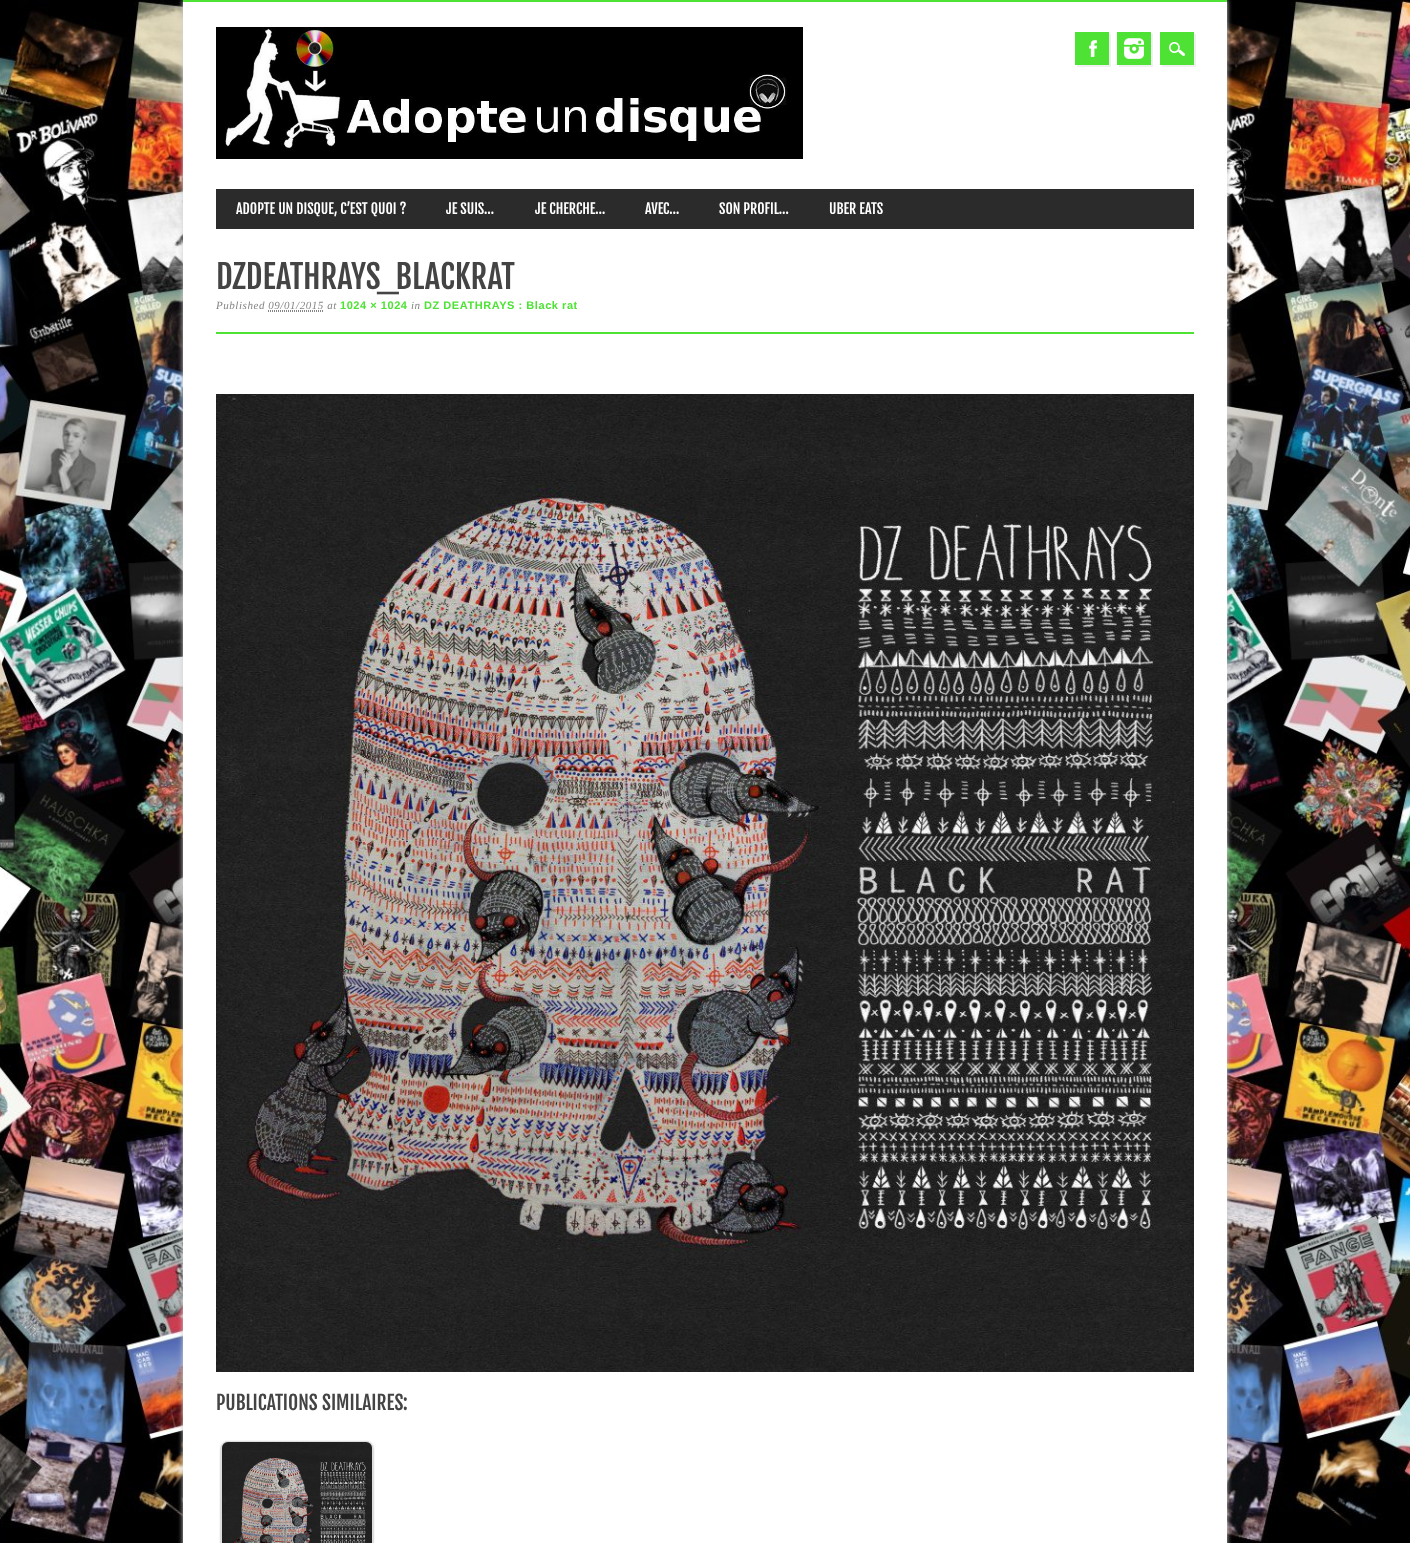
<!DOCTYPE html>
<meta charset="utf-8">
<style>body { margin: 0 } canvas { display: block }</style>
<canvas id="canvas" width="1410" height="1543"></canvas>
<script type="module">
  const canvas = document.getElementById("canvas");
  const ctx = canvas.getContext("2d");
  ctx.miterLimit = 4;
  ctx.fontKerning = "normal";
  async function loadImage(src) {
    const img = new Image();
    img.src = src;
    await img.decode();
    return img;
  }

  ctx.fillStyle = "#ffffff";
  ctx.fillRect(0, 0, 1410, 1543);
  ctx.drawImage(await loadImage("img1.png"), 0, 0, 1410, 1543);
  ctx.fillStyle = "#d0d0d0";
  ctx.filter = "blur(2.5px)";
  ctx.beginPath();
  ctx.rect(183, 0, 1044, 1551);
  ctx.fill();
  ctx.filter = "none";
  ctx.fillStyle = "#ffffff";
  ctx.fillRect(183, 2, 1044, 1541);
  ctx.fillStyle = "#4ee234";
  ctx.fillRect(183, 0, 1044, 2);
  ctx.drawImage(await loadImage("img2.png"), 216, 27, 587, 132);
  ctx.fillStyle = "#f0f0f0";
  ctx.beginPath();
  ctx.moveTo(1077, 65);
  ctx.lineTo(1077, 67);
  ctx.lineTo(1111, 67);
  ctx.lineTo(1111, 34);
  ctx.lineTo(1109, 34);
  ctx.lineTo(1109, 65);
  ctx.closePath();
  ctx.fill();
  ctx.fillStyle = "#4ee234";
  ctx.fillRect(1075, 32, 34, 33);
  ctx.drawImage(await loadImage("img3.png"), 1089, 40, 8, 17);
  ctx.fillStyle = "#f0f0f0";
  ctx.beginPath();
  ctx.moveTo(1119, 65);
  ctx.lineTo(1119, 67);
  ctx.lineTo(1153, 67);
  ctx.lineTo(1153, 34);
  ctx.lineTo(1151, 34);
  ctx.lineTo(1151, 65);
  ctx.closePath();
  ctx.fill();
  ctx.fillStyle = "#4ee234";
  ctx.fillRect(1117, 32, 34, 33);
  ctx.drawImage(await loadImage("img4.png"), 1124, 38, 20, 21);
  ctx.fillStyle = "#f0f0f0";
  ctx.beginPath();
  ctx.moveTo(1162, 65);
  ctx.lineTo(1162, 67);
  ctx.lineTo(1196, 67);
  ctx.lineTo(1196, 34);
  ctx.lineTo(1194, 34);
  ctx.lineTo(1194, 65);
  ctx.closePath();
  ctx.fill();
  ctx.fillStyle = "#4ee234";
  ctx.fillRect(1160, 32, 34, 33);
  ctx.drawImage(await loadImage("img5.png"), 1169, 42, 16, 14);
  ctx.fillStyle = "#2b2b2b";
  ctx.fillRect(216, 189, 978, 40);
  ctx.font = "14px Fjalla One";
  ctx.fillStyle = "#ffffff";
  ctx.fillText("ADOPTE UN DISQUE, C’EST QUOI ?", 236, 214);
  ctx.fillText("JE SUIS…", 446, 214);
  ctx.fillText("JE CHERCHE…", 535, 214);
  ctx.fillText("AVEC…", 645, 214);
  ctx.fillText("SON PROFIL…", 719, 214);
  ctx.fillText("UBER EATS", 829, 214);
  ctx.font = "32.5px Fjalla One";
  ctx.fillStyle = "#444444";
  ctx.fillText("DZDEATHRAYS_BLACKRAT", 216, 289);
  ctx.letterSpacing = "0.55px";
  ctx.font = "italic 11px Liberation Serif";
  ctx.fillStyle = "#858585";
  ctx.fillText("Published 09/01/2015 at", 216, 309);
  ctx.font = "bold 11px Liberation Sans";
  ctx.fillStyle = "#4ee234";
  ctx.fillText("1024 × 1024", 340, 309);
  ctx.font = "italic 11px Liberation Serif";
  ctx.fillStyle = "#858585";
  ctx.fillText("in", 411, 309);
  ctx.font = "bold 11px Liberation Sans";
  ctx.fillStyle = "#4ee234";
  ctx.fillText("DZ DEATHRAYS : Black rat", 424, 309);
  ctx.beginPath();
  ctx.moveTo(268, 311.5);
  ctx.lineTo(324, 311.5);
  ctx.moveTo(268, 310.5);
  ctx.lineTo(324, 310.5);
  ctx.strokeStyle = "#858585";
  ctx.setLineDash([1, 1]);
  ctx.stroke();
  ctx.fillRect(216, 332, 978, 2);
  ctx.drawImage(await loadImage("img6.png"), 216, 394, 978, 978);
  ctx.letterSpacing = "0px";
  ctx.font = "19.5px Fjalla One";
  ctx.fillStyle = "#444444";
  ctx.fillText("PUBLICATIONS SIMILAIRES:", 216, 1410);
  ctx.fillStyle = "rgba(0, 0, 0, 0.4)";
  ctx.filter = "blur(1px)";
  ctx.beginPath();
  ctx.roundRect(221, 1442, 152, 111, 7);
  ctx.fill();
  ctx.filter = "none";
  ctx.beginPath();
  ctx.roundRect(221.5, 1441.5, 151, 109, 6.5);
  ctx.strokeStyle = "#dddddd";
  ctx.setLineDash([]);
  ctx.stroke();
  ctx.drawImage(await loadImage("img7.png"), 222, 1442, 150, 101);
</script>
